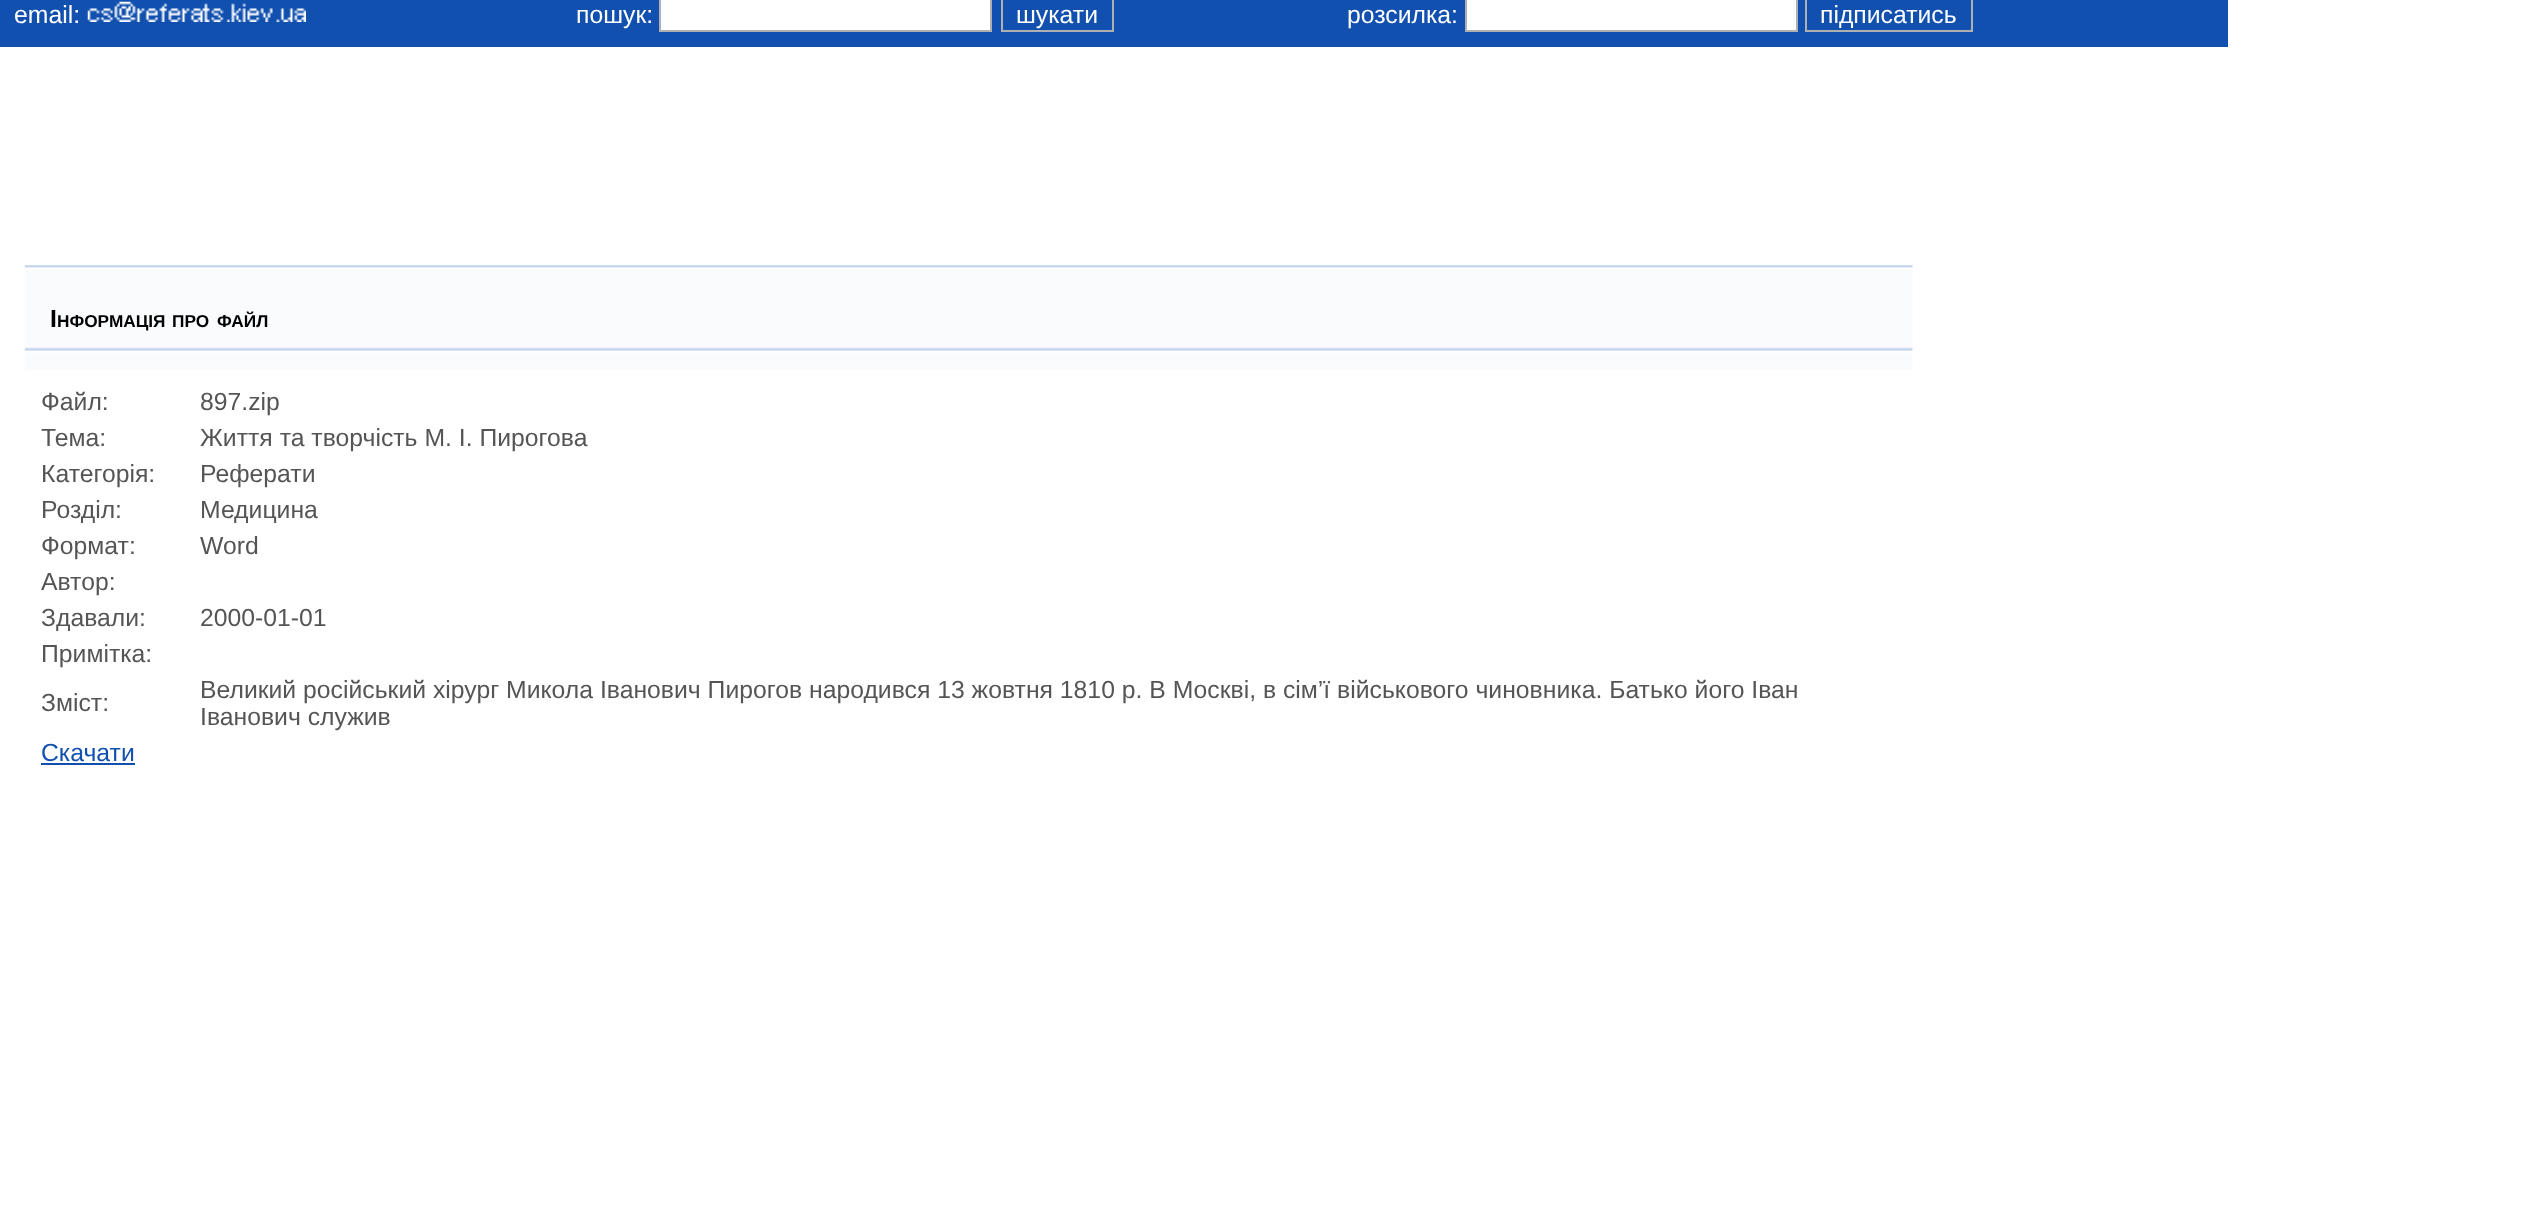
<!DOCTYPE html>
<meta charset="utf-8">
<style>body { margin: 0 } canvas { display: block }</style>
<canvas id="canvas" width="2526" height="1212"></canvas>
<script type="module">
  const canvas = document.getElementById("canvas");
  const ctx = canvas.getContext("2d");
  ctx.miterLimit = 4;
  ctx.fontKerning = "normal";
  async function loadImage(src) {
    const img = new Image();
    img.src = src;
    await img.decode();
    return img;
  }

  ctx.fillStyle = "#ffffff";
  ctx.fillRect(0, 0, 2526, 1212);
  ctx.fillStyle = "#1150af";
  ctx.fillRect(0, 0, 2228, 47);
  ctx.font = "24.75px Liberation Sans";
  ctx.fillStyle = "#ffffff";
  ctx.fillText("email:", 14, 23);
  ctx.drawImage(await loadImage("img1.png"), 87, 1, 219, 21);
  ctx.fillText("пошук:", 576, 23);
  ctx.beginPath();
  ctx.rect(660, -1, 331, 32);
  ctx.fill();
  ctx.strokeStyle = "#afb0b1";
  ctx.lineWidth = 2;
  ctx.stroke();
  ctx.strokeRect(1002, -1, 111, 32);
  ctx.fillText("шукати", 1016, 23);
  ctx.fillText("розсилка:", 1347, 23);
  ctx.beginPath();
  ctx.rect(1466, -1, 331, 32);
  ctx.fill();
  ctx.stroke();
  ctx.strokeRect(1806, -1, 166, 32);
  ctx.fillText("підписатись", 1820, 23);
  ctx.drawImage(await loadImage("img2.png"), 24, 265, 1889, 105);
  ctx.font = "bold 24.75px Liberation Sans";
  ctx.fillStyle = "#000000";
  ctx.fillText("І", 50, 327);
  ctx.font = "bold 17.25px Liberation Sans";
  ctx.fillText("НФОРМАЦІЯ", 57, 327);
  ctx.fillText("ПРО", 172, 327);
  ctx.fillText("ФАЙЛ", 217, 327);
  ctx.font = "24.75px Liberation Sans";
  ctx.fillStyle = "#555555";
  ctx.fillText("Файл:", 41, 410);
  ctx.fillText("897.zip", 200, 410);
  ctx.fillText("Тема:", 41, 446);
  ctx.fillText("Життя та творчість М. І. Пирогова", 200, 446);
  ctx.fillText("Категорія:", 41, 482);
  ctx.fillText("Реферати", 200, 482);
  ctx.fillText("Розділ:", 41, 518);
  ctx.fillText("Медицина", 200, 518);
  ctx.fillText("Формат:", 41, 554);
  ctx.fillText("Word", 200, 554);
  ctx.fillText("Автор:", 41, 590);
  ctx.fillText("Здавали:", 41, 626);
  ctx.fillText("2000-01-01", 200, 626);
  ctx.fillText("Примітка:", 41, 662);
  ctx.fillText("Зміст:", 41, 711);
  ctx.fillText("Великий російський хірург Микола Іванович Пирогов народився 13 жовтня 1810 р. В Москві, в сім’ї військового чиновника. Батько його Іван", 200, 698);
  ctx.fillText("Іванович служив", 200, 725);
  ctx.fillStyle = "#1150af";
  ctx.fillText("Cкачати", 41, 761);
  ctx.fillRect(41, 763, 94, 2);
</script>
